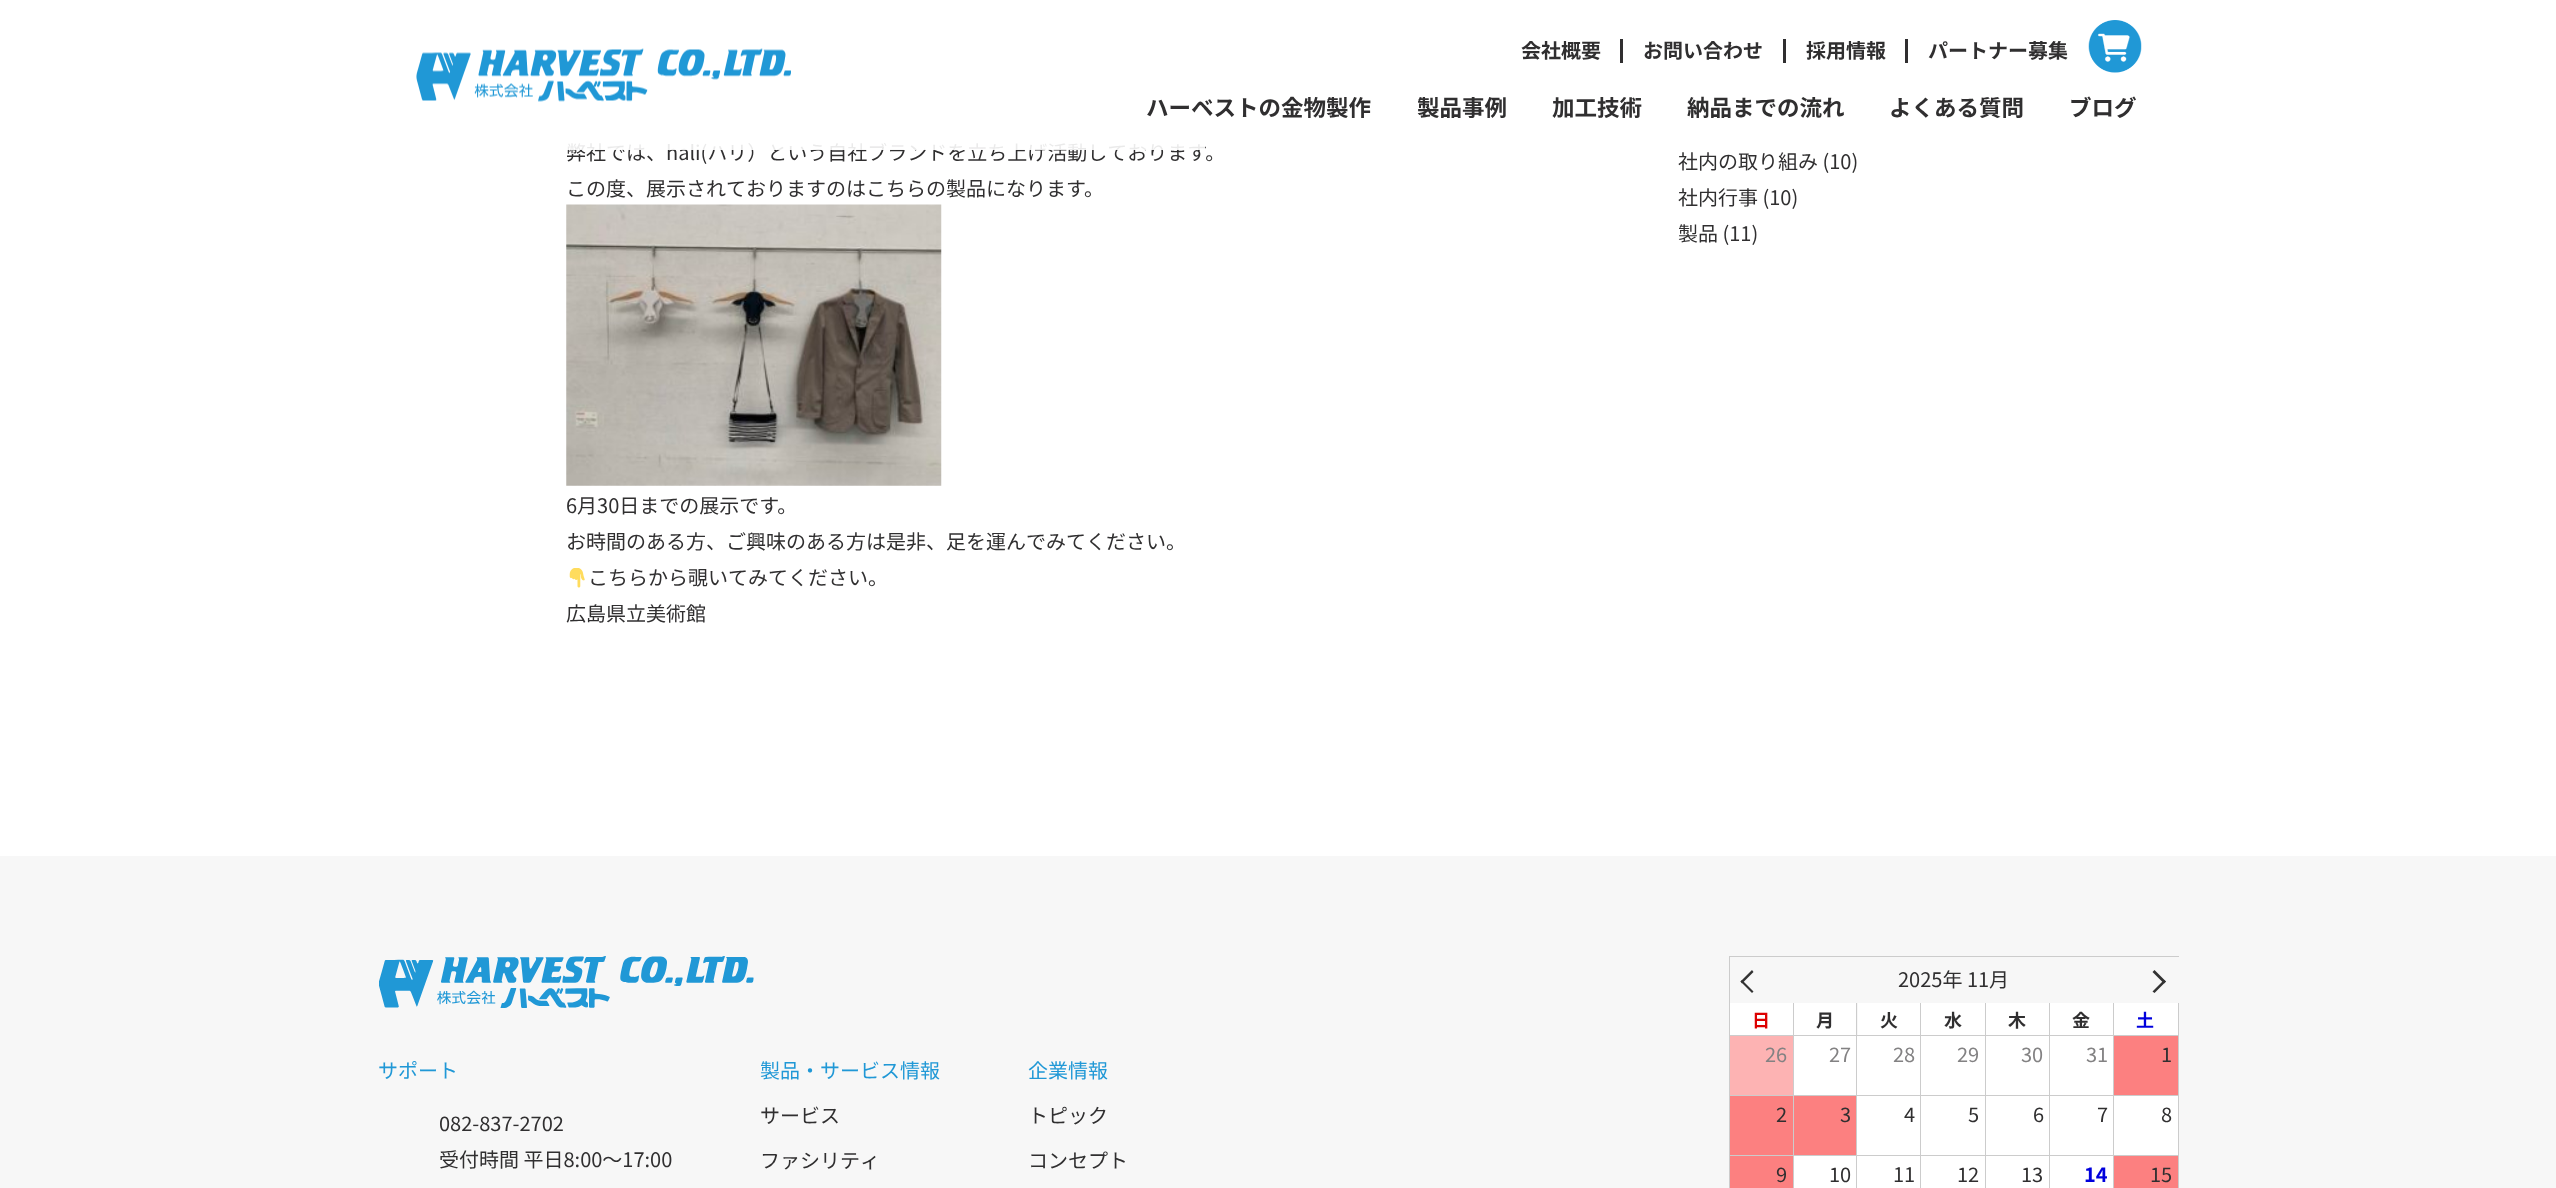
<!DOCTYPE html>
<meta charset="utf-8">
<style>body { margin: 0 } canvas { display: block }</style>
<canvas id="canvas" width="2556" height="1188"></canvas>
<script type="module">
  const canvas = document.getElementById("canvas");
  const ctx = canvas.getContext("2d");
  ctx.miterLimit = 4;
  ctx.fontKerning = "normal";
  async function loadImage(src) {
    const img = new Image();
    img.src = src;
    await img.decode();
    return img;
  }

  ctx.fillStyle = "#ffffff";
  ctx.fillRect(0, 0, 2556, 1188);
  ctx.font = "20px Noto Sans JP";
  ctx.fillStyle = "#302f30";
  ctx.fillText("弊社では、hali(ハリ）という自社ブランドを立ち上げ活動しております。", 566, 160);
  ctx.fillStyle = "rgba(255, 255, 255, 0.9)";
  ctx.fillRect(567, 142, 638, 8);
  ctx.drawImage(await loadImage("img1.png"), 416, 48, 375, 54);
  ctx.fillStyle = "#302f30";
  ctx.fillRect(1620, 39, 3, 24);
  ctx.font = "bold 20px Noto Sans JP";
  ctx.fillText("会社概要", 1521, 58);
  ctx.fillRect(1783, 39, 3, 24);
  ctx.fillText("お問い合わせ", 1643, 58);
  ctx.fillRect(1905, 39, 3, 24);
  ctx.fillText("採用情報", 1806, 58);
  ctx.fillText("パートナー募集", 1928, 58);
  ctx.drawImage(await loadImage("img2.png"), 2088, 20, 54, 53);
  ctx.font = "bold 22.5px Noto Sans JP";
  ctx.fillText("ハーベストの金物製作", 1146, 116);
  ctx.fillText("製品事例", 1417, 116);
  ctx.fillText("加工技術", 1552, 116);
  ctx.fillText("納品までの流れ", 1687, 116);
  ctx.fillText("よくある質問", 1889, 116);
  ctx.fillText("ブログ", 2069, 116);
  ctx.font = "20px Noto Sans JP";
  ctx.fillText("この度、展示されておりますのはこちらの製品になります。", 566, 196);
  ctx.drawImage(await loadImage("img3.png"), 566, 204, 376, 282);
  ctx.fillText("6月30日までの展示です。", 566, 513);
  ctx.fillText("お時間のある方、ご興味のある方は是非、足を運んでみてください。", 566, 549);
  ctx.drawImage(await loadImage("img4.png"), 569, 568, 16, 20);
  ctx.fillText("こちらから覗いてみてください。", 588, 585);
  ctx.fillText("広島県立美術館", 566, 621);
  ctx.fillText("社内の取り組み (10)", 1678, 169);
  ctx.fillText("社内行事 (10)", 1678, 205);
  ctx.fillText("製品 (11)", 1678, 241);
  ctx.fillStyle = "#f7f7f7";
  ctx.fillRect(0, 856, 2556, 332);
  ctx.drawImage(await loadImage("img5.png"), 379, 956, 375, 52);
  ctx.fillStyle = "#2098d6";
  ctx.fillText("サポート", 378, 1078);
  ctx.fillStyle = "#302f30";
  ctx.fillText("082-837-2702", 439, 1131);
  ctx.fillText("受付時間 平日8:00〜17:00", 439, 1167);
  ctx.fillStyle = "#2098d6";
  ctx.fillText("製品・サービス情報", 760, 1078);
  ctx.fillStyle = "#302f30";
  ctx.fillText("サービス", 760, 1123);
  ctx.fillText("ファシリティ", 760, 1168);
  ctx.fillStyle = "#2098d6";
  ctx.fillText("企業情報", 1028, 1078);
  ctx.fillStyle = "#302f30";
  ctx.fillText("トピック", 1028, 1123);
  ctx.fillText("コンセプト", 1028, 1168);
  ctx.fillStyle = "#cccccc";
  ctx.fillRect(1729, 956, 450, 1);
  ctx.fillRect(1729, 956, 1, 232);
  ctx.fillStyle = "#333333";
  ctx.beginPath();
  ctx.moveTo(1742, 980);
  ctx.lineTo(1753.5, 991.5);
  ctx.lineTo(1752, 993);
  ctx.lineTo(1740.5, 981.5);
  ctx.closePath();
  ctx.fill();
  ctx.beginPath();
  ctx.moveTo(1752, 970);
  ctx.lineTo(1753.5, 972);
  ctx.lineTo(1742, 983.5);
  ctx.lineTo(1740.5, 981.5);
  ctx.closePath();
  ctx.fill();
  ctx.fillStyle = "#302f30";
  ctx.fillText("2025年 11月", 1898, 987);
  ctx.fillStyle = "#333333";
  ctx.beginPath();
  ctx.moveTo(2154.5, 970);
  ctx.lineTo(2166, 981.5);
  ctx.lineTo(2164, 983.5);
  ctx.lineTo(2152.5, 972);
  ctx.closePath();
  ctx.fill();
  ctx.beginPath();
  ctx.moveTo(2164, 980);
  ctx.lineTo(2166, 981.5);
  ctx.lineTo(2154.5, 993);
  ctx.lineTo(2152.5, 991.5);
  ctx.closePath();
  ctx.fill();
  ctx.fillStyle = "#ffffff";
  ctx.fillRect(1730, 1003, 63, 32);
  ctx.fillStyle = "#cccccc";
  ctx.fillRect(1793, 1003, 1, 32);
  ctx.font = "bold 18px Noto Sans JP";
  ctx.fillStyle = "#dd0000";
  ctx.fillText("日", 1752, 1027);
  ctx.fillStyle = "#ffffff";
  ctx.fillRect(1794, 1003, 62, 32);
  ctx.fillStyle = "#cccccc";
  ctx.fillRect(1856, 1003, 1, 32);
  ctx.fillStyle = "#302f30";
  ctx.fillText("月", 1816, 1027);
  ctx.fillStyle = "#ffffff";
  ctx.fillRect(1858, 1003, 62, 32);
  ctx.fillStyle = "#cccccc";
  ctx.fillRect(1920, 1003, 1, 32);
  ctx.fillStyle = "#302f30";
  ctx.fillText("火", 1880, 1027);
  ctx.fillStyle = "#ffffff";
  ctx.fillRect(1921, 1003, 64, 32);
  ctx.fillStyle = "#cccccc";
  ctx.fillRect(1985, 1003, 1, 32);
  ctx.fillStyle = "#302f30";
  ctx.fillText("水", 1944, 1027);
  ctx.fillStyle = "#ffffff";
  ctx.fillRect(1986, 1003, 63, 32);
  ctx.fillStyle = "#cccccc";
  ctx.fillRect(2049, 1003, 1, 32);
  ctx.fillStyle = "#302f30";
  ctx.fillText("木", 2008, 1027);
  ctx.fillStyle = "#ffffff";
  ctx.fillRect(2050, 1003, 63, 32);
  ctx.fillStyle = "#cccccc";
  ctx.fillRect(2113, 1003, 1, 32);
  ctx.fillStyle = "#302f30";
  ctx.fillText("金", 2072, 1027);
  ctx.fillStyle = "#ffffff";
  ctx.fillRect(2114, 1003, 64, 32);
  ctx.fillStyle = "#cccccc";
  ctx.fillRect(2178, 1003, 1, 32);
  ctx.fillStyle = "#0000dd";
  ctx.fillText("土", 2136, 1027);
  ctx.fillStyle = "#ffffff";
  ctx.fillRect(1794, 1036, 319, 59);
  ctx.fillStyle = "#cccccc";
  ctx.fillRect(1730, 1035, 449, 1);
  ctx.fillRect(1793, 1035, 1, 60);
  ctx.fillStyle = "#fdb3b3";
  ctx.fillRect(1730, 1036, 63, 59);
  ctx.font = "20px Noto Sans JP";
  ctx.fillStyle = "#838283";
  ctx.fillText("26", 1765, 1062);
  ctx.fillStyle = "#cccccc";
  ctx.fillRect(1856, 1035, 1, 60);
  ctx.fillStyle = "#838283";
  ctx.fillText("27", 1829, 1062);
  ctx.fillStyle = "#cccccc";
  ctx.fillRect(1920, 1035, 1, 60);
  ctx.fillStyle = "#838283";
  ctx.fillText("28", 1893, 1062);
  ctx.fillStyle = "#cccccc";
  ctx.fillRect(1985, 1035, 1, 60);
  ctx.fillStyle = "#838283";
  ctx.fillText("29", 1957, 1062);
  ctx.fillStyle = "#cccccc";
  ctx.fillRect(2049, 1035, 1, 60);
  ctx.fillStyle = "#838283";
  ctx.fillText("30", 2021, 1062);
  ctx.fillStyle = "#cccccc";
  ctx.fillRect(2113, 1035, 1, 60);
  ctx.fillStyle = "#838283";
  ctx.fillText("31", 2086, 1062);
  ctx.fillStyle = "#cccccc";
  ctx.fillRect(2178, 1035, 1, 60);
  ctx.fillStyle = "#fc8080";
  ctx.fillRect(2114, 1036, 64, 59);
  ctx.fillStyle = "#302f30";
  ctx.fillText("1", 2161, 1062);
  ctx.fillStyle = "#ffffff";
  ctx.fillRect(1857, 1096, 321, 59);
  ctx.fillStyle = "#cccccc";
  ctx.fillRect(1730, 1095, 449, 1);
  ctx.fillRect(1793, 1095, 1, 60);
  ctx.fillStyle = "#fc8080";
  ctx.fillRect(1730, 1096, 63, 59);
  ctx.fillStyle = "#302f30";
  ctx.fillText("2", 1776, 1122);
  ctx.fillStyle = "#cccccc";
  ctx.fillRect(1856, 1095, 1, 60);
  ctx.fillStyle = "#fc8080";
  ctx.fillRect(1794, 1096, 62, 59);
  ctx.fillStyle = "#302f30";
  ctx.fillText("3", 1840, 1122);
  ctx.fillStyle = "#cccccc";
  ctx.fillRect(1920, 1095, 1, 60);
  ctx.fillStyle = "#302f30";
  ctx.fillText("4", 1904, 1122);
  ctx.fillStyle = "#cccccc";
  ctx.fillRect(1985, 1095, 1, 60);
  ctx.fillStyle = "#302f30";
  ctx.fillText("5", 1968, 1122);
  ctx.fillStyle = "#cccccc";
  ctx.fillRect(2049, 1095, 1, 60);
  ctx.fillStyle = "#302f30";
  ctx.fillText("6", 2033, 1122);
  ctx.fillStyle = "#cccccc";
  ctx.fillRect(2113, 1095, 1, 60);
  ctx.fillStyle = "#302f30";
  ctx.fillText("7", 2097, 1122);
  ctx.fillStyle = "#cccccc";
  ctx.fillRect(2178, 1095, 1, 60);
  ctx.fillStyle = "#302f30";
  ctx.fillText("8", 2161, 1122);
  ctx.fillStyle = "#ffffff";
  ctx.fillRect(1794, 1156, 319, 32);
  ctx.fillStyle = "#cccccc";
  ctx.fillRect(1730, 1155, 449, 1);
  ctx.fillRect(1793, 1155, 1, 33);
  ctx.fillStyle = "#fc8080";
  ctx.fillRect(1730, 1156, 63, 32);
  ctx.fillStyle = "#302f30";
  ctx.fillText("9", 1776, 1182);
  ctx.fillStyle = "#cccccc";
  ctx.fillRect(1856, 1155, 1, 33);
  ctx.fillStyle = "#302f30";
  ctx.fillText("10", 1829, 1182);
  ctx.fillStyle = "#cccccc";
  ctx.fillRect(1920, 1155, 1, 33);
  ctx.fillStyle = "#302f30";
  ctx.fillText("11", 1893, 1182);
  ctx.fillStyle = "#cccccc";
  ctx.fillRect(1985, 1155, 1, 33);
  ctx.fillStyle = "#302f30";
  ctx.fillText("12", 1957, 1182);
  ctx.fillStyle = "#cccccc";
  ctx.fillRect(2049, 1155, 1, 33);
  ctx.fillStyle = "#302f30";
  ctx.fillText("13", 2021, 1182);
  ctx.fillStyle = "#cccccc";
  ctx.fillRect(2113, 1155, 1, 33);
  ctx.font = "bold 20px Noto Sans JP";
  ctx.fillStyle = "#0000dd";
  ctx.fillText("14", 2084, 1182);
  ctx.fillStyle = "#cccccc";
  ctx.fillRect(2178, 1155, 1, 33);
  ctx.fillStyle = "#fc8080";
  ctx.fillRect(2114, 1156, 64, 32);
  ctx.font = "20px Noto Sans JP";
  ctx.fillStyle = "#302f30";
  ctx.fillText("15", 2150, 1182);
</script>
